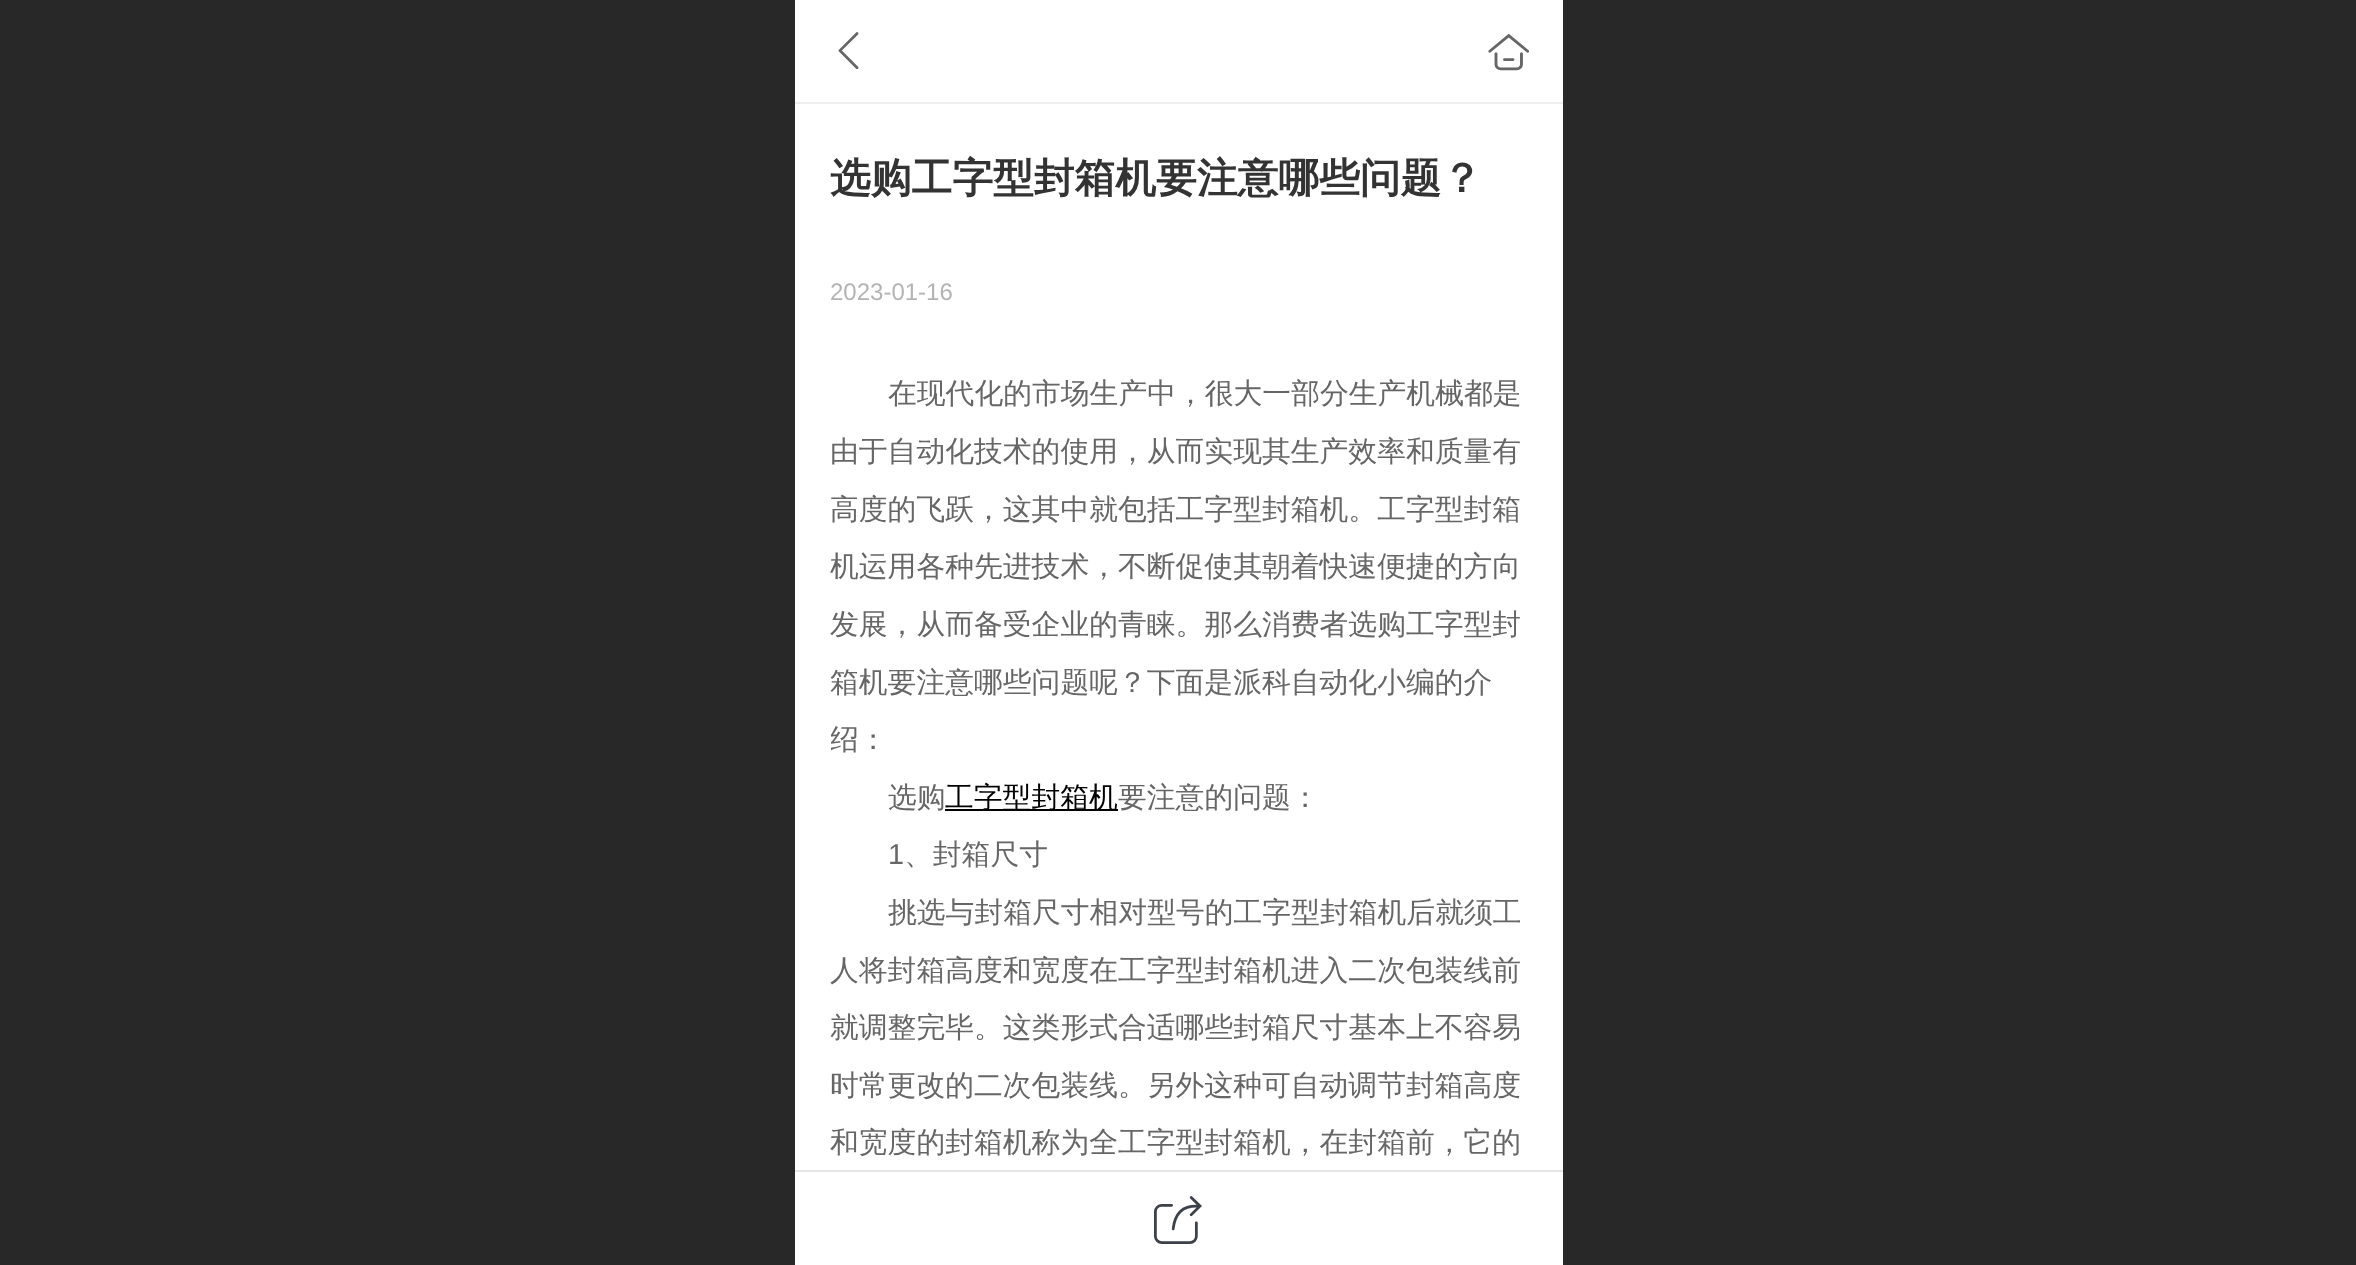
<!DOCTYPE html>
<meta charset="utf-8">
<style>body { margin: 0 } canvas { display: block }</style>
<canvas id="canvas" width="2356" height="1265"></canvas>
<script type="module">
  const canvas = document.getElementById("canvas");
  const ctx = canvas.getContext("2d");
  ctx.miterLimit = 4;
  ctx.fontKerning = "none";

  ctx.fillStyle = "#ffffff";
  ctx.fillRect(0, 0, 2356, 1265);
  ctx.fillStyle = "#282828";
  ctx.fillRect(0, 0, 795, 1265);
  ctx.fillStyle = "#eeeeee";
  ctx.fillRect(795, 102, 768, 2);
  ctx.font = "37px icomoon";
  ctx.fillStyle = "#666666";
  ctx.fillText("򰊔", 830, 66);
  ctx.font = "40.75px icomoon";
  ctx.fillText("򰌓", 1488, 69);
  ctx.font = "bold 40.75px WenQuanYi Zen Hei";
  ctx.fillStyle = "#333333";
  ctx.fillText("选购工字型封箱机要注意哪些问题？", 830, 192);
  ctx.font = "24px Liberation Sans";
  ctx.fillStyle = "#b3b3b3";
  ctx.fillText("2023-01-16", 830, 300);
  ctx.font = "500 28.8px WenQuanYi Zen Hei";
  ctx.fillStyle = "#666666";
  ctx.fillText("在现代化的市场生产中，很大一部分生产机械都是", 888, 403);
  ctx.fillText("由于自动化技术的使用，从而实现其生产效率和质量有", 830, 461);
  ctx.fillText("高度的飞跃，这其中就包括工字型封箱机。工字型封箱", 830, 519);
  ctx.fillText("机运用各种先进技术，不断促使其朝着快速便捷的方向", 830, 576);
  ctx.fillText("发展，从而备受企业的青睐。那么消费者选购工字型封", 830, 634);
  ctx.fillText("箱机要注意哪些问题呢？下面是派科自动化小编的介", 830, 692);
  ctx.save();
  ctx.beginPath();
  ctx.rect(831, 366, 696, 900);
  ctx.clip();
  ctx.fillText("绍：", 830, 749);
  ctx.restore();
  ctx.fillText("选购", 888, 807);
  ctx.fillStyle = "#000000";
  ctx.fillRect(945, 809, 173, 2);
  ctx.fillText("工字型封箱机", 945, 807);
  ctx.fillStyle = "#666666";
  ctx.fillText("要注意的问题：", 1118, 807);
  ctx.font = "28.8px Liberation Sans";
  ctx.fillText("1", 888, 864);
  ctx.font = "500 28.8px WenQuanYi Zen Hei";
  ctx.fillText("、封箱尺寸", 904, 864);
  ctx.fillText("挑选与封箱尺寸相对型号的工字型封箱机后就须工", 888, 922);
  ctx.fillText("人将封箱高度和宽度在工字型封箱机进入二次包装线前", 830, 980);
  ctx.fillText("就调整完毕。这类形式合适哪些封箱尺寸基本上不容易", 830, 1037);
  ctx.fillText("时常更改的二次包装线。另外这种可自动调节封箱高度", 830, 1095);
  ctx.fillText("和宽度的封箱机称为全工字型封箱机，在封箱前，它的", 830, 1152);
  ctx.fillStyle = "#e5e5e5";
  ctx.fillRect(795, 1170, 768, 2);
  ctx.font = "48px icomoon";
  ctx.fillStyle = "#3c414a";
  ctx.fillText("򰌐", 1154, 1240);
  ctx.fillStyle = "#282828";
  ctx.fillRect(1563, 0, 793, 1265);
</script>
